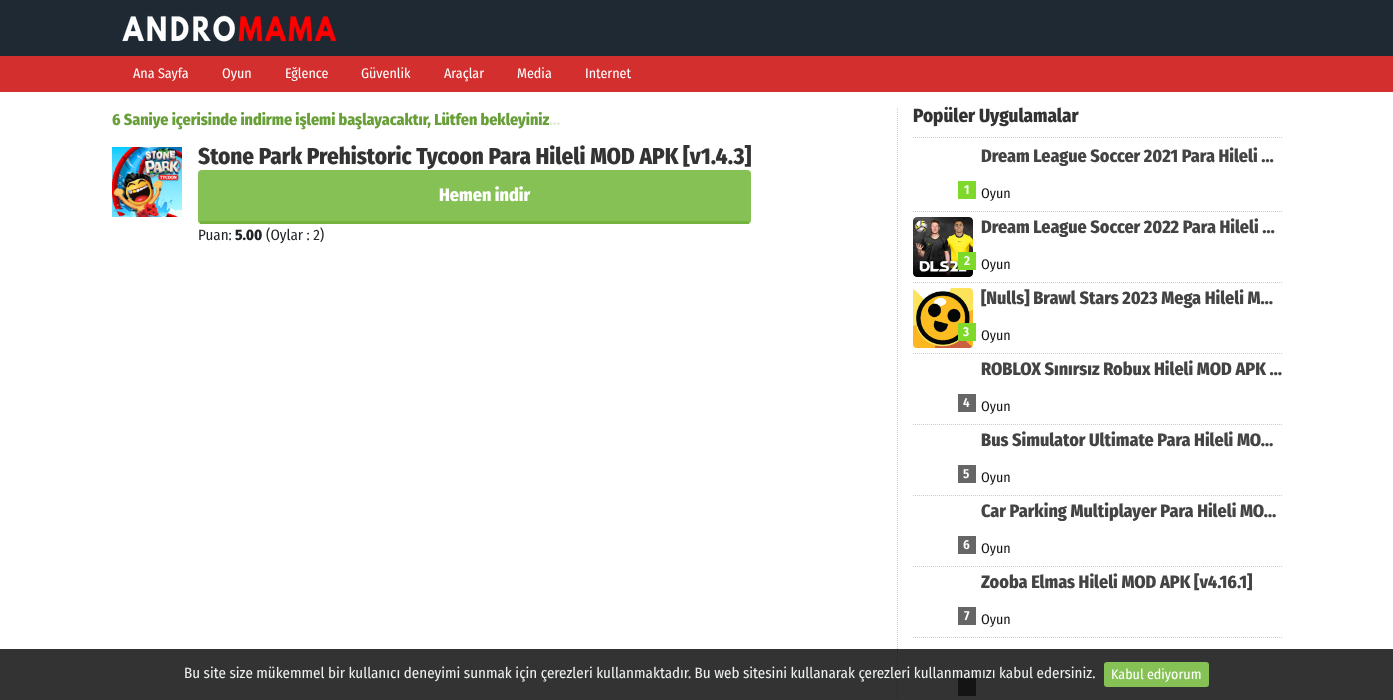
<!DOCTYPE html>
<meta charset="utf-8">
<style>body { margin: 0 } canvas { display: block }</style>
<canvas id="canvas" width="1393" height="700"></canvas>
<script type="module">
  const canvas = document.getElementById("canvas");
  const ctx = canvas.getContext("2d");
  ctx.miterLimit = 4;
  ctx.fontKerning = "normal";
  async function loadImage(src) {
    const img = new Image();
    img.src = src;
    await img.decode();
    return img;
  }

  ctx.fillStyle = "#ffffff";
  ctx.fillRect(0, 0, 1393, 700);
  ctx.fillStyle = "#1e2933";
  ctx.fillRect(0, 0, 1393, 56);
  ctx.drawImage(await loadImage("img1.png"), 122, 14, 215, 28);
  ctx.fillStyle = "#d32f2f";
  ctx.fillRect(0, 56, 1393, 36);
  ctx.font = "14px Fira Sans Condensed";
  ctx.fillStyle = "#ffffff";
  ctx.fillText("Ana Sayfa", 133, 78);
  ctx.fillText("Oyun", 222, 78);
  ctx.fillText("Eğlence", 285, 78);
  ctx.fillText("Güvenlik", 361, 78);
  ctx.fillText("Araçlar", 444, 78);
  ctx.fillText("Media", 517, 78);
  ctx.fillText("Internet", 585, 78);
  ctx.font = "800 16px Fira Sans Condensed";
  ctx.fillStyle = "#689f38";
  ctx.fillText("6 Saniye içerisinde indirme işlemi başlayacaktır, Lütfen bekleyiniz", 112, 125);
  ctx.fillStyle = "#e1ecd7";
  ctx.fillText("...", 549, 125);
  ctx.drawImage(await loadImage("img2.png"), 112, 147, 70, 70);
  ctx.font = "800 23px Fira Sans Condensed";
  ctx.fillStyle = "#333333";
  ctx.fillText("Stone Park Prehistoric Tycoon Para Hileli MOD APK [v1.4.3]", 198, 164);
  ctx.fillStyle = "#85c154";
  ctx.beginPath();
  ctx.roundRect(198, 170, 553, 54, 4);
  ctx.fill();
  ctx.fillStyle = "#73b33e";
  ctx.fillRect(200, 221, 549, 3);
  ctx.font = "800 18px Fira Sans Condensed";
  ctx.fillStyle = "#ffffff";
  ctx.fillText("Hemen indir", 439, 201);
  ctx.font = "15px Fira Sans Condensed";
  ctx.fillStyle = "#212529";
  ctx.fillText("Puan:", 198, 240);
  ctx.font = "800 15px Fira Sans Condensed";
  ctx.fillText("5.00", 235, 240);
  ctx.font = "15px Fira Sans Condensed";
  ctx.fillText("(Oylar : 2)", 266, 240);
  ctx.beginPath();
  ctx.moveTo(897.5, 108);
  ctx.lineTo(897.5, 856);
  ctx.strokeStyle = "#cccccc";
  ctx.setLineDash([1, 1]);
  ctx.stroke();
  ctx.beginPath();
  ctx.moveTo(913, 137.5);
  ctx.lineTo(1282, 137.5);
  ctx.stroke();
  ctx.font = "800 19px Fira Sans Condensed";
  ctx.fillStyle = "#333333";
  ctx.fillText("Popüler Uygulamalar", 913, 122);
  ctx.beginPath();
  ctx.moveTo(913, 211.5);
  ctx.lineTo(1282, 211.5);
  ctx.stroke();
  ctx.fillStyle = "#7ed92b";
  ctx.fillRect(958, 181, 18, 18);
  ctx.font = "600 13px Fira Sans Condensed";
  ctx.fillStyle = "#ffffff";
  ctx.fillText("1", 964, 194);
  ctx.font = "800 18px Fira Sans Condensed";
  ctx.fillStyle = "#444444";
  ctx.fillText("Dream League Soccer 2021 Para Hileli …", 981, 162);
  ctx.font = "14px Fira Sans Condensed";
  ctx.fillStyle = "#111111";
  ctx.fillText("Oyun", 981, 198);
  ctx.beginPath();
  ctx.moveTo(913, 282.5);
  ctx.lineTo(1282, 282.5);
  ctx.stroke();
  ctx.drawImage(await loadImage("img3.png"), 913, 217, 60, 60);
  ctx.font = "800 18px Fira Sans Condensed";
  ctx.fillStyle = "#444444";
  ctx.fillText("Dream League Soccer 2022 Para Hileli …", 981, 233);
  ctx.font = "14px Fira Sans Condensed";
  ctx.fillStyle = "#111111";
  ctx.fillText("Oyun", 981, 269);
  ctx.fillStyle = "#7ed92b";
  ctx.fillRect(958, 252, 18, 18);
  ctx.font = "600 13px Fira Sans Condensed";
  ctx.fillStyle = "#ffffff";
  ctx.fillText("2", 964, 265);
  ctx.beginPath();
  ctx.moveTo(913, 353.5);
  ctx.lineTo(1282, 353.5);
  ctx.stroke();
  ctx.drawImage(await loadImage("img4.png"), 913, 288, 60, 60);
  ctx.save();
  ctx.beginPath();
  ctx.rect(981, 288, 301, 20);
  ctx.clip();
  ctx.font = "800 18px Fira Sans Condensed";
  ctx.fillStyle = "#444444";
  ctx.fillText("[Nulls] Brawl Stars 2023 Mega Hileli M…", 981, 304);
  ctx.restore();
  ctx.font = "14px Fira Sans Condensed";
  ctx.fillStyle = "#111111";
  ctx.fillText("Oyun", 981, 340);
  ctx.fillStyle = "#7ed92b";
  ctx.fillRect(958, 323, 18, 18);
  ctx.font = "600 13px Fira Sans Condensed";
  ctx.fillStyle = "#ffffff";
  ctx.fillText("3", 963, 336);
  ctx.beginPath();
  ctx.moveTo(913, 424.5);
  ctx.lineTo(1282, 424.5);
  ctx.stroke();
  ctx.fillStyle = "#666666";
  ctx.fillRect(958, 394, 18, 18);
  ctx.fillStyle = "#ffffff";
  ctx.fillText("4", 963, 407);
  ctx.font = "800 18px Fira Sans Condensed";
  ctx.fillStyle = "#444444";
  ctx.fillText("ROBLOX Sınırsız Robux Hileli MOD APK …", 981, 375);
  ctx.font = "14px Fira Sans Condensed";
  ctx.fillStyle = "#111111";
  ctx.fillText("Oyun", 981, 411);
  ctx.beginPath();
  ctx.moveTo(913, 495.5);
  ctx.lineTo(1282, 495.5);
  ctx.stroke();
  ctx.fillStyle = "#666666";
  ctx.fillRect(958, 465, 18, 18);
  ctx.font = "600 13px Fira Sans Condensed";
  ctx.fillStyle = "#ffffff";
  ctx.fillText("5", 963, 478);
  ctx.font = "800 18px Fira Sans Condensed";
  ctx.fillStyle = "#444444";
  ctx.fillText("Bus Simulator Ultimate Para Hileli MO…", 981, 446);
  ctx.font = "14px Fira Sans Condensed";
  ctx.fillStyle = "#111111";
  ctx.fillText("Oyun", 981, 482);
  ctx.beginPath();
  ctx.moveTo(913, 566.5);
  ctx.lineTo(1282, 566.5);
  ctx.stroke();
  ctx.fillStyle = "#666666";
  ctx.fillRect(958, 536, 18, 18);
  ctx.font = "600 13px Fira Sans Condensed";
  ctx.fillStyle = "#ffffff";
  ctx.fillText("6", 963, 549);
  ctx.font = "800 18px Fira Sans Condensed";
  ctx.fillStyle = "#444444";
  ctx.fillText("Car Parking Multiplayer Para Hileli MO…", 981, 517);
  ctx.font = "14px Fira Sans Condensed";
  ctx.fillStyle = "#111111";
  ctx.fillText("Oyun", 981, 553);
  ctx.beginPath();
  ctx.moveTo(913, 637.5);
  ctx.lineTo(1282, 637.5);
  ctx.stroke();
  ctx.fillStyle = "#666666";
  ctx.fillRect(958, 607, 18, 18);
  ctx.font = "600 13px Fira Sans Condensed";
  ctx.fillStyle = "#ffffff";
  ctx.fillText("7", 964, 620);
  ctx.save();
  ctx.beginPath();
  ctx.rect(981, 572, 271, 20);
  ctx.clip();
  ctx.font = "800 18px Fira Sans Condensed";
  ctx.fillStyle = "#444444";
  ctx.fillText("Zooba Elmas Hileli MOD APK [v4.16.1]", 981, 588);
  ctx.restore();
  ctx.font = "14px Fira Sans Condensed";
  ctx.fillStyle = "#111111";
  ctx.fillText("Oyun", 981, 624);
  ctx.fillStyle = "#666666";
  ctx.fillRect(958, 678, 18, 18);
  ctx.fillStyle = "rgba(0, 0, 0, 0.8)";
  ctx.fillRect(0, 649, 1393, 51);
  ctx.font = "15px Fira Sans Condensed";
  ctx.fillStyle = "#ecf0f1";
  ctx.fillText("Bu site size mükemmel bir kullanıcı deneyimi sunmak için çerezleri kullanmaktadır. Bu web sitesini kullanarak çerezleri kullanmamızı kabul edersiniz.", 184, 678);
  ctx.fillStyle = "#85c154";
  ctx.beginPath();
  ctx.roundRect(1104, 662, 105, 25, 3);
  ctx.fill();
  ctx.font = "14px Fira Sans Condensed";
  ctx.fillStyle = "#ffffff";
  ctx.fillText("Kabul ediyorum", 1111, 679);
</script>
